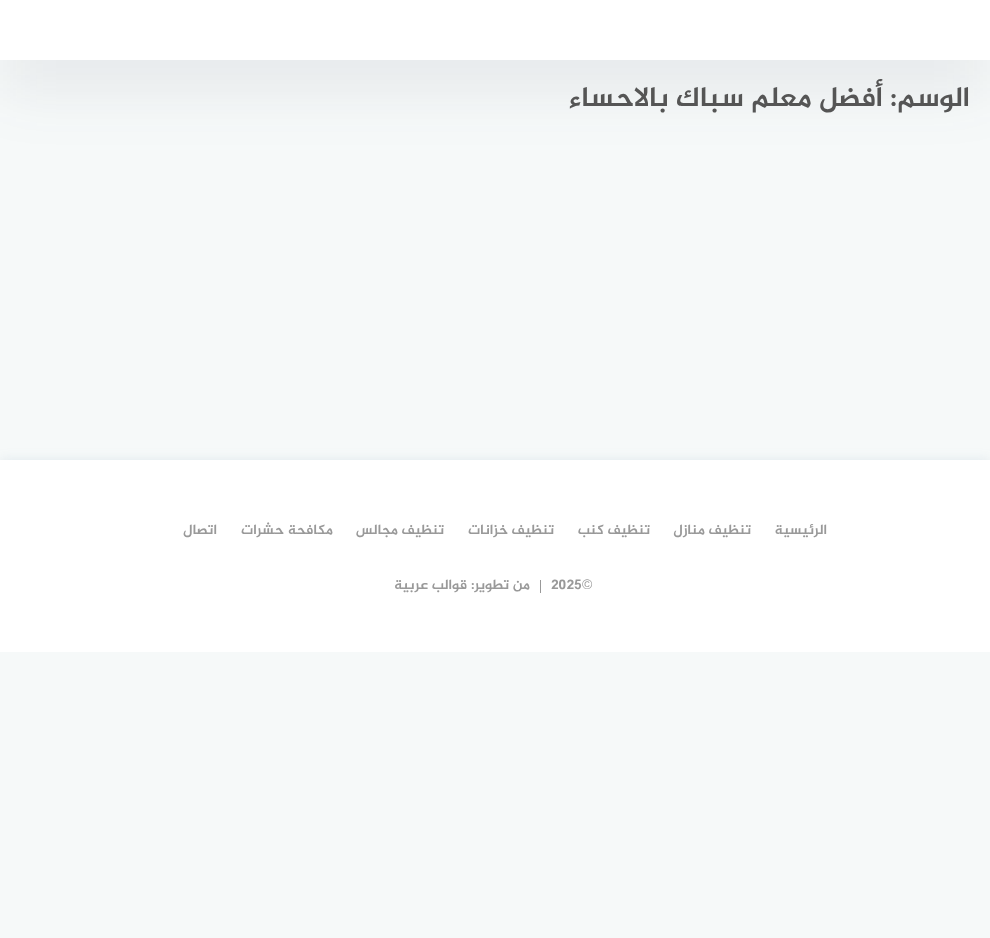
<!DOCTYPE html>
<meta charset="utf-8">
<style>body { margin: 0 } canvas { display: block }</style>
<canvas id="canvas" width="990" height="938"></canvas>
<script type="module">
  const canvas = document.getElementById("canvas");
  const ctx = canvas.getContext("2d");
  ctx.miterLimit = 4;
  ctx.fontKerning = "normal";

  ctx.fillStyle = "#f6f9f9";
  ctx.fillRect(0, 0, 990, 938);
  ctx.fillStyle = "rgba(54, 57, 73, 0.09)";
  ctx.filter = "blur(30px)";
  ctx.beginPath();
  ctx.rect(0, 29, 990, 60);
  ctx.fill();
  ctx.filter = "none";
  ctx.fillStyle = "#ffffff";
  ctx.fillRect(0, 0, 990, 60);
  ctx.direction = "rtl";
  ctx.font = "bold 28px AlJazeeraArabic";
  ctx.fillStyle = "#555555";
  ctx.fillText("الوسم:", 970, 106);
  ctx.fillText("أفضل معلم سباك بالاحساء", 883, 106);
  ctx.save();
  ctx.beginPath();
  ctx.rect(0, 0, 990, 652);
  ctx.clip();
  ctx.fillStyle = "rgba(110, 143, 171, 0.15)";
  ctx.filter = "blur(6px)";
  ctx.beginPath();
  ctx.rect(0, 460, 990, 192);
  ctx.fill();
  ctx.filter = "none";
  ctx.restore();
  ctx.fillStyle = "#ffffff";
  ctx.fillRect(0, 460, 990, 192);
  ctx.font = "bold 14px AlJazeeraArabic";
  ctx.fillStyle = "#999999";
  ctx.fillText("الرئيسية", 827, 534);
  ctx.fillText("تنظيف منازل", 751, 534);
  ctx.fillText("تنظيف كنب", 650, 534);
  ctx.fillText("تنظيف خزانات", 554, 534);
  ctx.fillText("تنظيف مجالس", 444, 534);
  ctx.fillText("مكافحة حشرات", 333, 534);
  ctx.fillText("اتصال", 217, 534);
  ctx.direction = "ltr";
  ctx.fillText("2025", 551, 589);
  ctx.font = "14px Liberation Sans";
  ctx.fillText("©", 582, 589);
  ctx.fillRect(540, 580, 1, 13);
  ctx.direction = "rtl";
  ctx.font = "bold 14px AlJazeeraArabic";
  ctx.fillText("من تطوير:", 530, 589);
  ctx.fillText("قوالب عربية", 467, 589);
</script>
